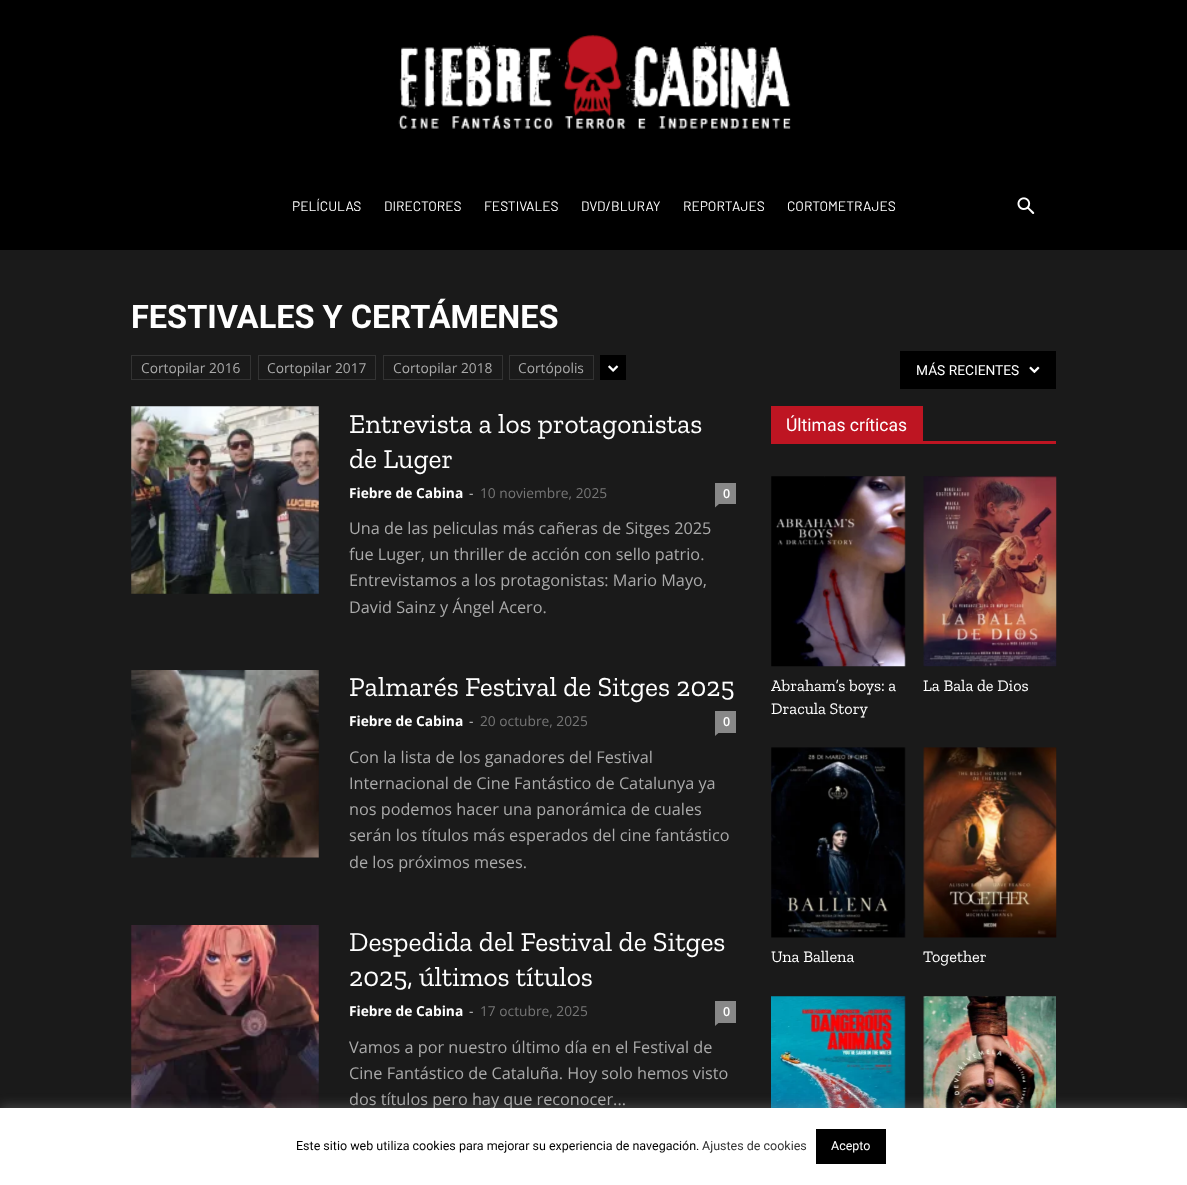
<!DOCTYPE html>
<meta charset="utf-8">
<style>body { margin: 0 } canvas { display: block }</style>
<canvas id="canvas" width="1187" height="1185"></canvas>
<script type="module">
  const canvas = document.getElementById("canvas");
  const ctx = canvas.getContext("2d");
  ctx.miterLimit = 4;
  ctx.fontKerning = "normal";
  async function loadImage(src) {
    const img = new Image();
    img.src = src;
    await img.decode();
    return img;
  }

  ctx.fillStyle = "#1a1a1a";
  ctx.fillRect(0, 0, 1187, 1185);
  ctx.fillStyle = "#000000";
  ctx.fillRect(0, 0, 1187, 250);
  ctx.drawImage(await loadImage("img1.png"), 398, 34, 393, 95);
  ctx.font = "13.75px Barlow";
  ctx.fillStyle = "#ffffff";
  ctx.fillText("PELÍCULAS", 292, 211);
  ctx.fillText("DIRECTORES", 384, 211);
  ctx.fillText("FESTIVALES", 484, 211);
  ctx.fillText("DVD/BLURAY", 581, 211);
  ctx.fillText("REPORTAJES", 683, 211);
  ctx.fillText("CORTOMETRAJES", 787, 211);
  ctx.drawImage(await loadImage("img2.png"), 1017, 197, 18, 17);
  ctx.font = "bold 32.5px Roboto";
  ctx.fillText("FESTIVALES Y CERTÁMENES", 131, 328);
  ctx.strokeStyle = "#333333";
  ctx.strokeRect(131.5, 355.5, 119, 24);
  ctx.font = "13.75px Open Sans";
  ctx.fillStyle = "#aaaaaa";
  ctx.fillText("Cortopilar 2016", 141, 373);
  ctx.strokeRect(258.5, 355.5, 117, 24);
  ctx.fillText("Cortopilar 2017", 267, 373);
  ctx.strokeRect(383.5, 355.5, 119, 24);
  ctx.fillText("Cortopilar 2018", 393, 373);
  ctx.strokeRect(509.5, 355.5, 84, 24);
  ctx.fillText("Cortópolis", 518, 373);
  ctx.fillStyle = "#000000";
  ctx.fillRect(600, 355, 26, 25);
  ctx.drawImage(await loadImage("img3.png"), 608, 365, 11, 7);
  ctx.fillRect(900, 351, 156, 38);
  ctx.font = "13.75px Roboto";
  ctx.fillStyle = "#ffffff";
  ctx.fillText("MÁS RECIENTES", 916, 375);
  ctx.drawImage(await loadImage("img4.png"), 1029, 366, 11, 8);
  ctx.drawImage(await loadImage("img5.png"), 131, 406, 188, 188);
  ctx.font = "27.5px Zilla Slab";
  ctx.fillText("Entrevista a los protagonistas", 349, 433);
  ctx.fillText("de Luger", 349, 468);
  ctx.font = "bold 13.75px Open Sans";
  ctx.fillText("Fiebre de Cabina", 349, 498);
  ctx.font = "13.75px Open Sans";
  ctx.fillStyle = "#cccccc";
  ctx.fillText("-", 469, 498);
  ctx.fillStyle = "#767676";
  ctx.fillText("10 noviembre, 2025", 480, 498);
  ctx.fillStyle = "#888888";
  ctx.fillRect(715, 483, 21, 21);
  ctx.font = "600 12.5px Open Sans";
  ctx.fillStyle = "#ffffff";
  ctx.fillText("0", 723, 498);
  ctx.fillStyle = "#888888";
  ctx.beginPath();
  ctx.moveTo(715, 504);
  ctx.lineTo(719, 504);
  ctx.lineTo(715, 507.5);
  ctx.closePath();
  ctx.fill();
  ctx.font = "16.25px Open Sans";
  ctx.fillStyle = "#aaaaaa";
  ctx.fillText("Una de las peliculas más cañeras de Sitges 2025", 349, 534);
  ctx.fillText("fue Luger, un thriller de acción con sello patrio.", 349, 560);
  ctx.fillText("Entrevistamos a los protagonistas: Mario Mayo,", 349, 586);
  ctx.fillText("David Sainz y Ángel Acero.", 349, 613);
  ctx.drawImage(await loadImage("img6.png"), 131, 670, 188, 188);
  ctx.font = "27.5px Zilla Slab";
  ctx.fillStyle = "#ffffff";
  ctx.fillText("Palmarés Festival de Sitges 2025", 349, 696);
  ctx.font = "bold 13.75px Open Sans";
  ctx.fillText("Fiebre de Cabina", 349, 726);
  ctx.font = "13.75px Open Sans";
  ctx.fillStyle = "#cccccc";
  ctx.fillText("-", 469, 726);
  ctx.fillStyle = "#767676";
  ctx.fillText("20 octubre, 2025", 480, 726);
  ctx.fillStyle = "#888888";
  ctx.fillRect(715, 711, 21, 22);
  ctx.font = "600 12.5px Open Sans";
  ctx.fillStyle = "#ffffff";
  ctx.fillText("0", 723, 726);
  ctx.fillStyle = "#888888";
  ctx.beginPath();
  ctx.moveTo(715, 732.5);
  ctx.lineTo(719, 732.5);
  ctx.lineTo(715, 736);
  ctx.closePath();
  ctx.fill();
  ctx.font = "16.25px Open Sans";
  ctx.fillStyle = "#aaaaaa";
  ctx.fillText("Con la lista de los ganadores del Festival", 349, 763);
  ctx.fillText("Internacional de Cine Fantástico de Catalunya ya", 349, 789);
  ctx.fillText("nos podemos hacer una panorámica de cuales", 349, 815);
  ctx.fillText("serán los títulos más esperados del cine fantástico", 349, 841);
  ctx.fillText("de los próximos meses.", 349, 868);
  ctx.drawImage(await loadImage("img7.png"), 131, 925, 188, 183);
  ctx.font = "27.5px Zilla Slab";
  ctx.fillStyle = "#ffffff";
  ctx.fillText("Despedida del Festival de Sitges", 349, 951);
  ctx.fillText("2025, últimos títulos", 349, 986);
  ctx.font = "bold 13.75px Open Sans";
  ctx.fillText("Fiebre de Cabina", 349, 1016);
  ctx.font = "13.75px Open Sans";
  ctx.fillStyle = "#cccccc";
  ctx.fillText("-", 469, 1016);
  ctx.fillStyle = "#767676";
  ctx.fillText("17 octubre, 2025", 480, 1016);
  ctx.fillStyle = "#888888";
  ctx.fillRect(715, 1001, 21, 22);
  ctx.font = "600 12.5px Open Sans";
  ctx.fillStyle = "#ffffff";
  ctx.fillText("0", 723, 1016);
  ctx.fillStyle = "#888888";
  ctx.beginPath();
  ctx.moveTo(715, 1022.5);
  ctx.lineTo(719, 1022.5);
  ctx.lineTo(715, 1026);
  ctx.closePath();
  ctx.fill();
  ctx.font = "16.25px Open Sans";
  ctx.fillStyle = "#aaaaaa";
  ctx.fillText("Vamos a por nuestro último día en el Festival de", 349, 1053);
  ctx.fillText("Cine Fantástico de Cataluña. Hoy solo hemos visto", 349, 1079);
  ctx.fillText("dos títulos pero hay que reconocer...", 349, 1105);
  ctx.fillStyle = "#be1522";
  ctx.fillRect(771, 441, 285, 3);
  ctx.fillRect(771, 406, 152, 35);
  ctx.font = "17.5px Roboto";
  ctx.fillStyle = "#ffffff";
  ctx.fillText("Últimas críticas", 786, 431);
  ctx.drawImage(await loadImage("img8.png"), 771, 476, 135, 191);
  ctx.font = "16.25px Zilla Slab";
  ctx.fillText("Abraham’s boys: a", 771, 691);
  ctx.fillText("Dracula Story", 771, 714);
  ctx.drawImage(await loadImage("img9.png"), 923, 476, 134, 191);
  ctx.fillText("La Bala de Dios", 923, 691);
  ctx.drawImage(await loadImage("img10.png"), 771, 747, 135, 191);
  ctx.fillText("Una Ballena", 771, 962);
  ctx.drawImage(await loadImage("img11.png"), 923, 747, 134, 191);
  ctx.fillText("Together", 923, 962);
  ctx.drawImage(await loadImage("img12.png"), 771, 996, 135, 112);
  ctx.drawImage(await loadImage("img13.png"), 923, 996, 133, 112);
  ctx.fillStyle = "rgba(172, 171, 171, 0.3)";
  ctx.filter = "blur(6px)";
  ctx.beginPath();
  ctx.rect(0, 1106, 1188, 78);
  ctx.fill();
  ctx.filter = "none";
  ctx.fillStyle = "#ffffff";
  ctx.fillRect(0, 1108, 1187, 77);
  ctx.font = "12.5px Roboto";
  ctx.fillStyle = "#000000";
  ctx.fillText("Este sitio web utiliza cookies para mejorar su experiencia de navegación.", 296, 1150);
  ctx.fillStyle = "#333333";
  ctx.fillText("Ajustes de cookies", 702, 1150);
  ctx.fillStyle = "#000000";
  ctx.fillRect(816, 1129, 70, 35);
  ctx.fillStyle = "#ffffff";
  ctx.fillText("Acepto", 831, 1150);
</script>
